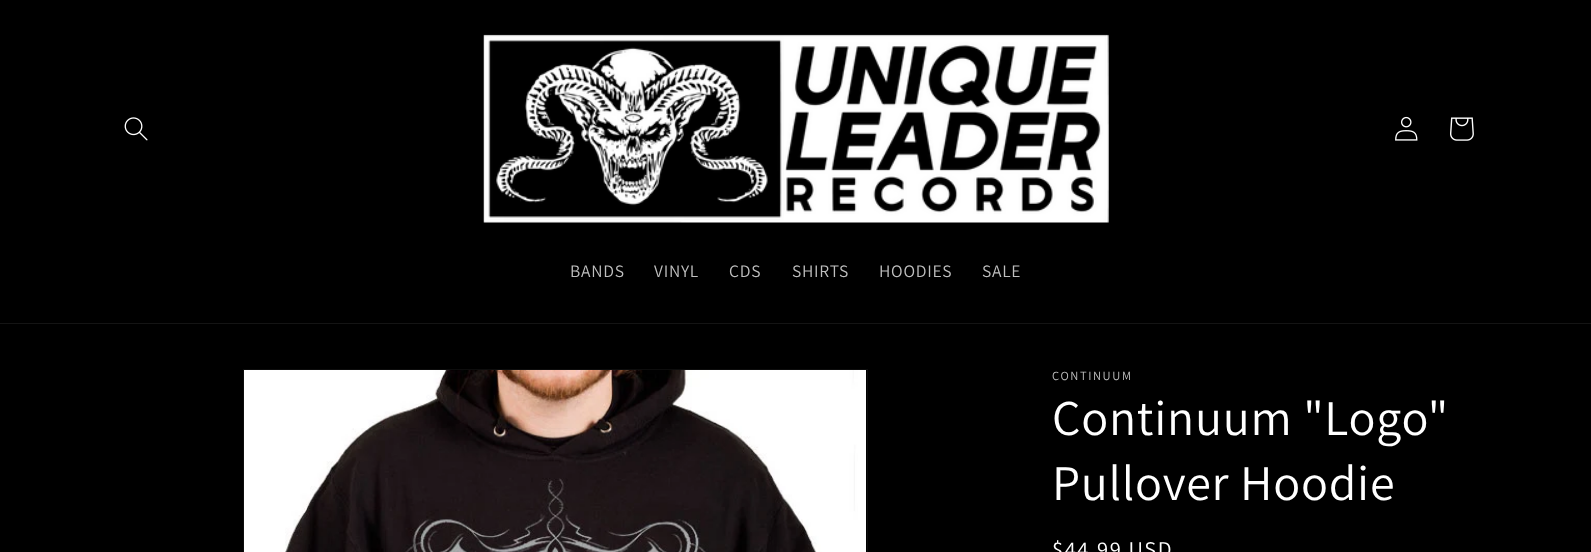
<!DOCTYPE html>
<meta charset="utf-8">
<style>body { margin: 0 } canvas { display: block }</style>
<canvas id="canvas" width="1591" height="552"></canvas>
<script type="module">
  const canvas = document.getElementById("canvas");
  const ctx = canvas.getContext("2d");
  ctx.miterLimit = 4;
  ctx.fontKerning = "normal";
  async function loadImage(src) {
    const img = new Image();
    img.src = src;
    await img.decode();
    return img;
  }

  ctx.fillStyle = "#000000";
  ctx.fillRect(0, 0, 1591, 552);
  ctx.fillStyle = "#141414";
  ctx.fillRect(0, 323, 1591, 1);
  ctx.drawImage(await loadImage("img1.png"), 124, 117, 24, 24);
  ctx.drawImage(await loadImage("img2.png"), 483, 34, 626, 189);
  ctx.drawImage(await loadImage("img3.png"), 1395, 116, 23, 25);
  ctx.drawImage(await loadImage("img4.png"), 1450, 117, 24, 24);
  ctx.letterSpacing = "0.75px";
  ctx.font = "17.5px Assistant";
  ctx.fillStyle = "#bfbfbf";
  ctx.fillText("BANDS", 570, 277);
  ctx.fillText("VINYL", 654, 277);
  ctx.fillText("CDS", 729, 277);
  ctx.fillText("SHIRTS", 792, 277);
  ctx.fillText("HOODIES", 879, 277);
  ctx.fillText("SALE", 982, 277);
  ctx.strokeStyle = "#0d0d0d";
  ctx.strokeRect(243.5, 369.5, 624, 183);
  ctx.drawImage(await loadImage("img5.png"), 244, 370, 622, 182);
  ctx.letterSpacing = "1.6px";
  ctx.font = "12.5px Assistant";
  ctx.fillText("CONTINUUM", 1052, 380);
  ctx.letterSpacing = "0.75px";
  ctx.font = "50px Assistant";
  ctx.fillStyle = "#ffffff";
  ctx.fillText("Continuum \"Logo\"", 1052, 435);
  ctx.fillText("Pullover Hoodie", 1052, 500);
  ctx.letterSpacing = "1.6px";
  ctx.font = "22.5px Assistant";
  ctx.fillText("$44.99 USD", 1052, 557);
</script>
